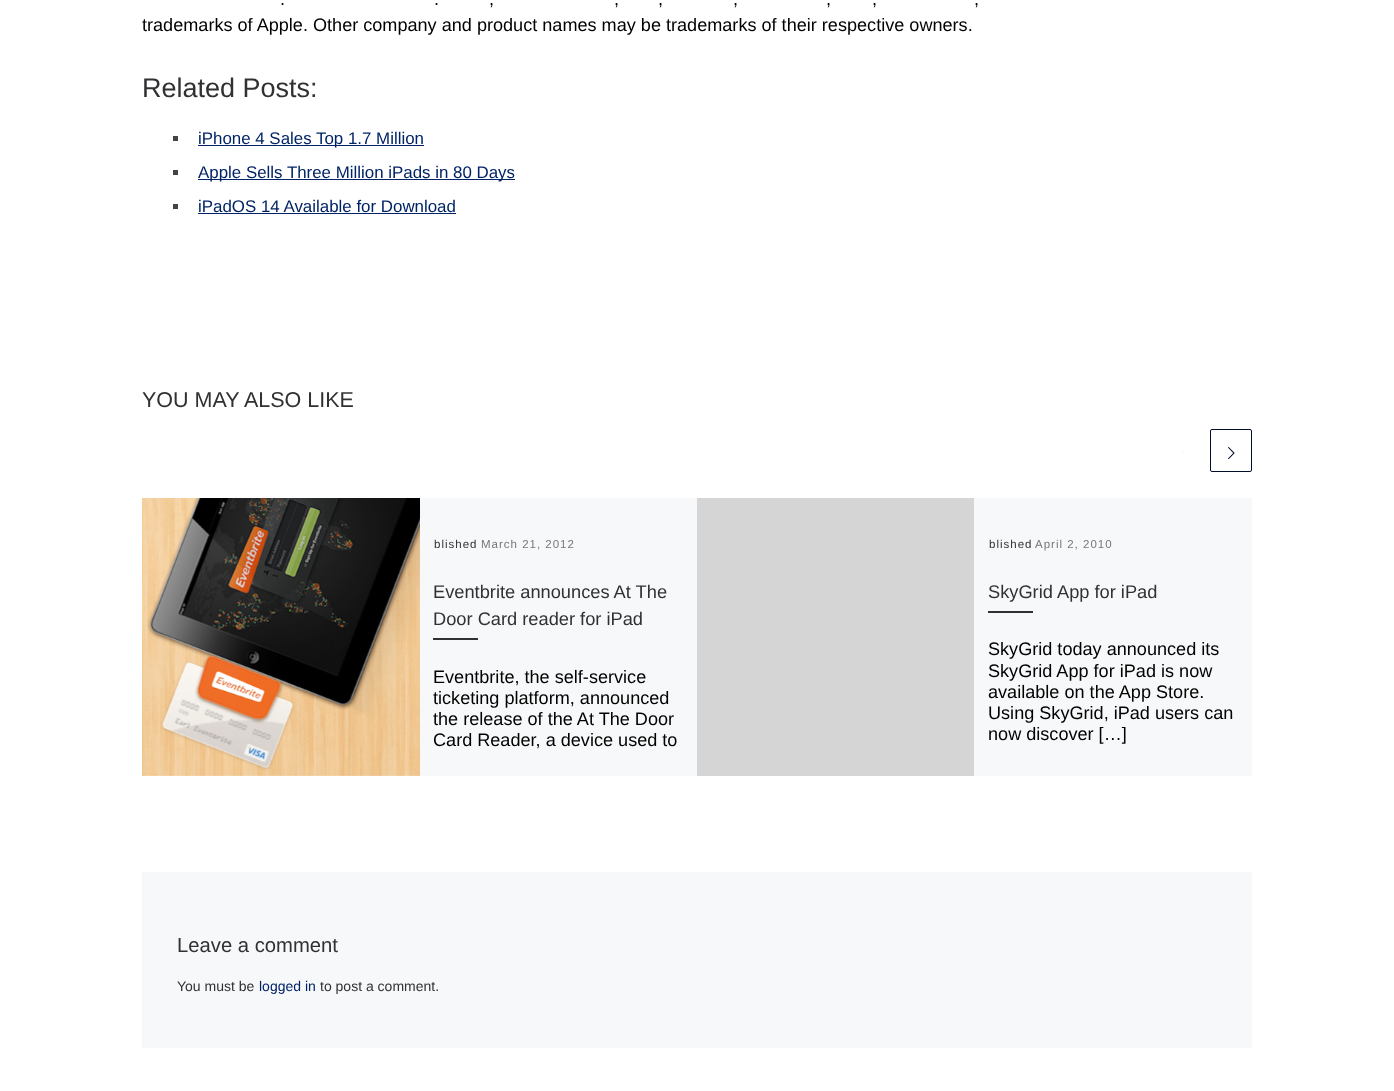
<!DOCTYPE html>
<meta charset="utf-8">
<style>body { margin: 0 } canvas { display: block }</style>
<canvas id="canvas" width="1394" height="1091"></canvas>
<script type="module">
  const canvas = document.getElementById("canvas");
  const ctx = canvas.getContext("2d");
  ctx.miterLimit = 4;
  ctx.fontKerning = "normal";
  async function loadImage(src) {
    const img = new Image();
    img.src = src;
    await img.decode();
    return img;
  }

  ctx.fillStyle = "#ffffff";
  ctx.fillRect(0, 0, 1394, 1091);
  ctx.font = "18.1px Liberation Sans";
  ctx.fillStyle = "#000000";
  ctx.fillText(".", 280, 5);
  ctx.fillText(".", 434, 5);
  ctx.fillText(",", 489, 5);
  ctx.fillText(",", 614, 5);
  ctx.fillText(",", 658, 5);
  ctx.fillText(",", 733, 5);
  ctx.fillText(",", 826, 5);
  ctx.fillText(",", 872, 5);
  ctx.fillText(",", 974, 5);
  ctx.fillText("trademarks of Apple. Other company and product names may be trademarks of their respective owners.", 142, 31);
  ctx.font = "27px Liberation Sans";
  ctx.fillStyle = "#303133";
  ctx.fillText("Related Posts:", 142, 97);
  ctx.fillStyle = "#444444";
  ctx.fillRect(173, 136, 5, 5);
  ctx.fillStyle = "#002366";
  ctx.fillRect(198, 145, 226, 1);
  ctx.font = "16.9px Liberation Sans";
  ctx.fillText("iPhone 4 Sales Top 1.7 Million", 198, 144);
  ctx.fillStyle = "#444444";
  ctx.fillRect(173, 170, 5, 5);
  ctx.fillStyle = "#002366";
  ctx.fillRect(198, 179, 317, 1);
  ctx.fillText("Apple Sells Three Million iPads in 80 Days", 198, 178);
  ctx.fillStyle = "#444444";
  ctx.fillRect(173, 204, 5, 5);
  ctx.fillStyle = "#002366";
  ctx.fillText("iPadOS 14 Available for Download", 198, 212);
  ctx.fillRect(198, 213, 258, 1);
  ctx.font = "21.5px Liberation Sans";
  ctx.fillStyle = "#303133";
  ctx.fillText("YOU MAY ALSO LIKE", 142, 407);
  ctx.fillStyle = "#fbfbfc";
  ctx.fillRect(1182, 450, 3, 3);
  ctx.beginPath();
  ctx.roundRect(1210.5, 429.5, 41, 42, 1.5);
  ctx.strokeStyle = "#000e29";
  ctx.stroke();
  ctx.drawImage(await loadImage("img1.png"), 1228, 447, 7, 13);
  ctx.fillStyle = "#f7f8f9";
  ctx.fillRect(142, 498, 555, 278);
  ctx.drawImage(await loadImage("img2.png"), 142, 498, 278, 278);
  ctx.letterSpacing = "1px";
  ctx.font = "11.5px Liberation Sans";
  ctx.fillStyle = "#303133";
  ctx.fillText("blished", 434, 548);
  ctx.fillStyle = "#777777";
  ctx.fillText("March 21, 2012", 481, 548);
  ctx.letterSpacing = "0px";
  ctx.font = "18.25px Liberation Sans";
  ctx.fillStyle = "#303133";
  ctx.fillText("Eventbrite announces At The", 433, 598);
  ctx.fillText("Door Card reader for iPad", 433, 625);
  ctx.fillStyle = "#313131";
  ctx.fillRect(433, 638, 45, 2);
  ctx.font = "18.1px Liberation Sans";
  ctx.fillStyle = "#000000";
  ctx.fillText("Eventbrite, the self-service", 433, 683);
  ctx.fillText("ticketing platform, announced", 433, 704);
  ctx.fillText("the release of the At The Door", 433, 725);
  ctx.fillText("Card Reader, a device used to", 433, 746);
  ctx.fillStyle = "#f7f8f9";
  ctx.fillRect(974, 498, 278, 278);
  ctx.fillStyle = "#d5d5d5";
  ctx.fillRect(697, 498, 277, 278);
  ctx.letterSpacing = "1px";
  ctx.font = "11.5px Liberation Sans";
  ctx.fillStyle = "#303133";
  ctx.fillText("blished", 989, 548);
  ctx.fillStyle = "#777777";
  ctx.fillText("April 2, 2010", 1035, 548);
  ctx.letterSpacing = "0px";
  ctx.font = "18.25px Liberation Sans";
  ctx.fillStyle = "#303133";
  ctx.fillText("SkyGrid App for iPad", 988, 598);
  ctx.fillStyle = "#313131";
  ctx.fillRect(988, 611, 45, 2);
  ctx.font = "18.1px Liberation Sans";
  ctx.fillStyle = "#000000";
  ctx.fillText("SkyGrid today announced its", 988, 655);
  ctx.fillText("SkyGrid App for iPad is now", 988, 677);
  ctx.fillText("available on the App Store.", 988, 698);
  ctx.fillText("Using SkyGrid, iPad users can", 988, 719);
  ctx.fillText("now discover […]", 988, 740);
  ctx.fillStyle = "#f7f8f9";
  ctx.fillRect(142, 872, 1110, 176);
  ctx.font = "20.25px Liberation Sans";
  ctx.fillStyle = "#303133";
  ctx.fillText("Leave a comment", 177, 952);
  ctx.font = "14px Liberation Sans";
  ctx.fillText("You must be", 177, 991);
  ctx.fillStyle = "#002366";
  ctx.fillText("logged in", 259, 991);
  ctx.fillStyle = "#303133";
  ctx.fillText("to post a comment.", 320, 991);
</script>
